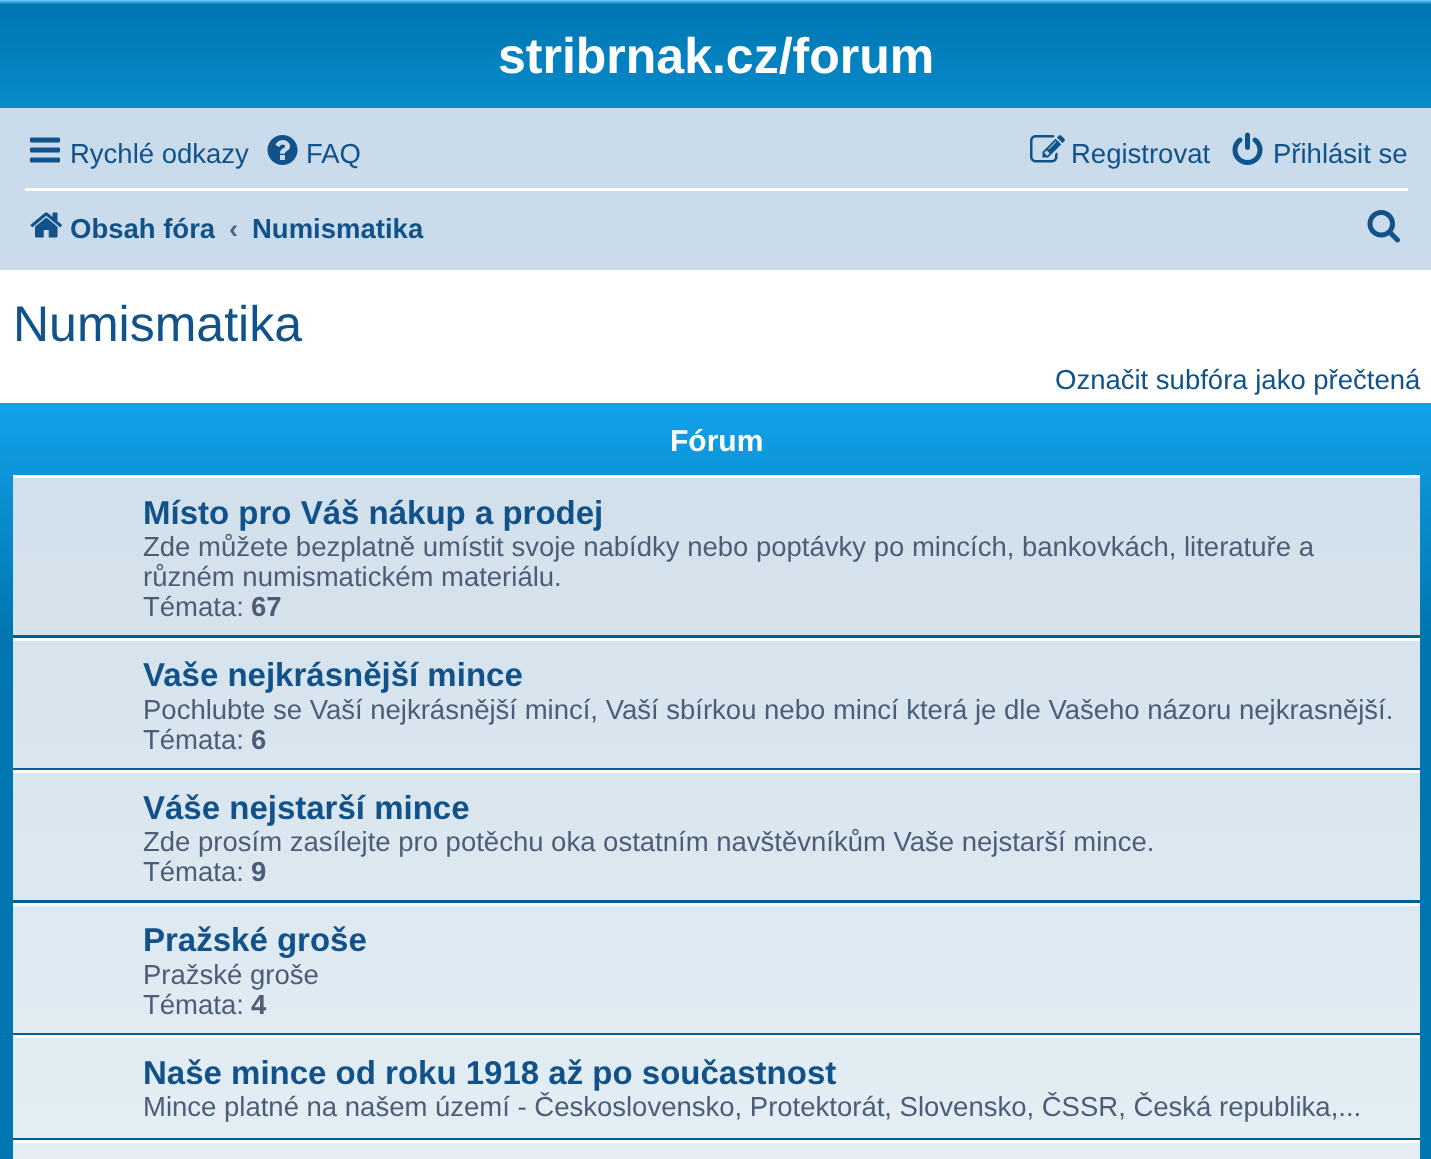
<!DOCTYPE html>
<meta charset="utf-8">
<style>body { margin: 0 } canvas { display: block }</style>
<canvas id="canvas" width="1431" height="1159"></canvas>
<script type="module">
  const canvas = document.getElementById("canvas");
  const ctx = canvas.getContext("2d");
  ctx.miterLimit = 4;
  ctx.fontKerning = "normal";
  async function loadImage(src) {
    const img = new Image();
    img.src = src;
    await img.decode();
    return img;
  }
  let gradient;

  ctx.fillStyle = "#ffffff";
  ctx.fillRect(0, 0, 1431, 1159);
  gradient = ctx.createLinearGradient(716, 0, 716, 230);
  gradient.addColorStop(0, "#6aceff");
  gradient.addColorStop(0.02, "#0076b1");
  gradient.addColorStop(1, "#12a3eb");
  ctx.fillStyle = gradient;
  ctx.fillRect(0, 0, 1431, 108);
  ctx.font = "bold 50px Liberation Sans";
  ctx.fillStyle = "#ffffff";
  ctx.fillText("stribrnak.cz/forum", 498, 73);
  ctx.fillStyle = "#cadceb";
  ctx.fillRect(0, 108, 1431, 162);
  ctx.drawImage(await loadImage("img1.png"), 30, 137, 30, 26);
  ctx.font = "27.5px Liberation Sans";
  ctx.fillStyle = "#105289";
  ctx.fillText("Rychlé odkazy", 70, 163);
  ctx.drawImage(await loadImage("img2.png"), 267, 135, 31, 30);
  ctx.fillText("FAQ", 306, 163);
  ctx.drawImage(await loadImage("img3.png"), 1030, 135, 35, 28);
  ctx.fillText("Registrovat", 1071, 163);
  ctx.drawImage(await loadImage("img4.png"), 1232, 132, 31, 33);
  ctx.fillText("Přihlásit se", 1273, 163);
  ctx.fillStyle = "#ffffff";
  ctx.fillRect(25, 188, 1383, 3);
  ctx.drawImage(await loadImage("img5.png"), 30, 212, 32, 26);
  ctx.save();
  ctx.beginPath();
  ctx.rect(25, 198, 190, 60);
  ctx.clip();
  ctx.font = "bold 27.5px Liberation Sans";
  ctx.fillStyle = "#105289";
  ctx.fillText("Obsah fóra", 70, 238);
  ctx.restore();
  ctx.font = "bold 27.5px Liberation Sans";
  ctx.fillStyle = "#536482";
  ctx.fillText("‹", 229, 238);
  ctx.fillStyle = "#105289";
  ctx.fillText("Numismatika", 252, 238);
  ctx.drawImage(await loadImage("img6.png"), 1367, 210, 33, 33);
  ctx.font = "50px Liberation Sans";
  ctx.fillText("Numismatika", 13, 341);
  ctx.font = "27.5px Liberation Sans";
  ctx.fillText("Označit subfóra jako přečtená", 1055, 389);
  gradient = ctx.createLinearGradient(716, 402, 716, 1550);
  gradient.addColorStop(0, "#6aceff");
  gradient.addColorStop(0, "#12a3eb");
  gradient.addColorStop(0.2, "#0076b1");
  gradient.addColorStop(1, "#0076b1");
  ctx.fillStyle = gradient;
  ctx.fillRect(0, 403, 1431, 756);
  ctx.font = "bold 30px Liberation Sans";
  ctx.fillStyle = "#ffffff";
  ctx.fillText("Fórum", 670, 451);
  gradient = ctx.createLinearGradient(716, 475, 716, 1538);
  gradient.addColorStop(0, "#d2e0eb");
  gradient.addColorStop(1, "#eef5f9");
  ctx.fillStyle = gradient;
  ctx.fillRect(13, 478, 1407, 681);
  ctx.fillStyle = "#ffffff";
  ctx.fillRect(13, 475, 1407, 3);
  ctx.fillStyle = "#00608f";
  ctx.fillRect(13, 635, 1407, 3);
  ctx.font = "bold 33px Liberation Sans";
  ctx.fillStyle = "#105289";
  ctx.fillText("Místo pro Váš nákup a prodej", 143, 524);
  ctx.font = "27.5px Liberation Sans";
  ctx.fillStyle = "#4c5d77";
  ctx.fillText("Zde můžete bezplatně umístit svoje nabídky nebo poptávky po mincích, bankovkách, literatuře a", 143, 556);
  ctx.fillText("různém numismatickém materiálu.", 143, 586);
  ctx.fillText("Témata:", 143, 616);
  ctx.font = "bold 27.5px Liberation Sans";
  ctx.fillText("67", 251, 616);
  ctx.fillStyle = "#ffffff";
  ctx.fillRect(13, 638, 1407, 3);
  ctx.fillStyle = "#00608f";
  ctx.fillRect(13, 768, 1407, 2);
  ctx.font = "bold 33px Liberation Sans";
  ctx.fillStyle = "#105289";
  ctx.fillText("Vaše nejkrásnější mince", 143, 686);
  ctx.font = "27.5px Liberation Sans";
  ctx.fillStyle = "#4c5d77";
  ctx.fillText("Pochlubte se Vaší nejkrásnější mincí, Vaší sbírkou nebo mincí která je dle Vašeho názoru nejkrasnější.", 143, 719);
  ctx.fillText("Témata:", 143, 749);
  ctx.font = "bold 27.5px Liberation Sans";
  ctx.fillText("6", 251, 749);
  ctx.fillStyle = "#ffffff";
  ctx.fillRect(13, 770, 1407, 3);
  ctx.fillStyle = "#00608f";
  ctx.fillRect(13, 900, 1407, 3);
  ctx.font = "bold 33px Liberation Sans";
  ctx.fillStyle = "#105289";
  ctx.fillText("Váše nejstarší mince", 143, 819);
  ctx.font = "27.5px Liberation Sans";
  ctx.fillStyle = "#4c5d77";
  ctx.fillText("Zde prosím zasílejte pro potěchu oka ostatním navštěvníkům Vaše nejstarší mince.", 143, 851);
  ctx.fillText("Témata:", 143, 881);
  ctx.font = "bold 27.5px Liberation Sans";
  ctx.fillText("9", 251, 881);
  ctx.fillStyle = "#ffffff";
  ctx.fillRect(13, 903, 1407, 3);
  ctx.fillStyle = "#00608f";
  ctx.fillRect(13, 1033, 1407, 2);
  ctx.font = "bold 33px Liberation Sans";
  ctx.fillStyle = "#105289";
  ctx.fillText("Pražské groše", 143, 951);
  ctx.font = "27.5px Liberation Sans";
  ctx.fillStyle = "#4c5d77";
  ctx.fillText("Pražské groše", 143, 984);
  ctx.fillText("Témata:", 143, 1014);
  ctx.font = "bold 27.5px Liberation Sans";
  ctx.fillText("4", 251, 1014);
  ctx.fillStyle = "#ffffff";
  ctx.fillRect(13, 1035, 1407, 3);
  ctx.fillStyle = "#00608f";
  ctx.fillRect(13, 1138, 1407, 2);
  ctx.font = "bold 33px Liberation Sans";
  ctx.fillStyle = "#105289";
  ctx.fillText("Naše mince od roku 1918 až po součastnost", 143, 1084);
  ctx.font = "27.5px Liberation Sans";
  ctx.fillStyle = "#4c5d77";
  ctx.fillText("Mince platné na našem území - Československo, Protektorát, Slovensko, ČSSR, Česká republika,...", 143, 1116);
  ctx.fillStyle = "#ffffff";
  ctx.fillRect(13, 1140, 1407, 3);
</script>
